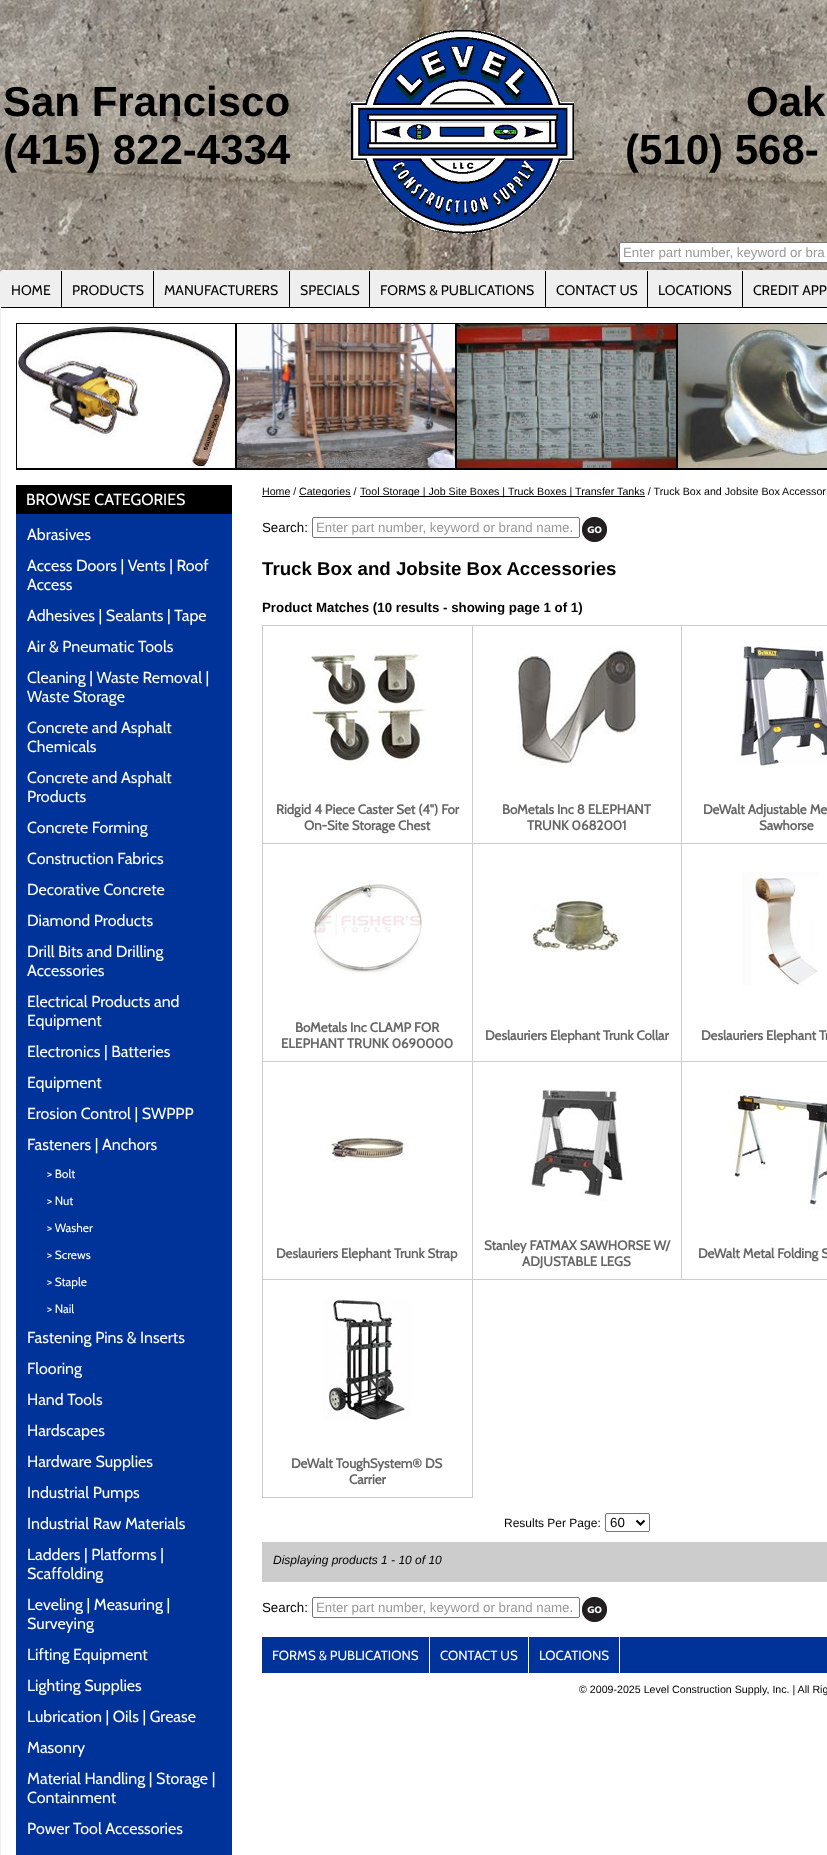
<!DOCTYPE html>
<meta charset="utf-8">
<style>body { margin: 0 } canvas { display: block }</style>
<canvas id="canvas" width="827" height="1855"></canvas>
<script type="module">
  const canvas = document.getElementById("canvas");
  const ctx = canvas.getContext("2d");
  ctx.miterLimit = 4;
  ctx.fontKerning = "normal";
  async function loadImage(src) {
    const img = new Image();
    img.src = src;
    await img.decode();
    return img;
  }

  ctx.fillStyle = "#ffffff";
  ctx.fillRect(0, 0, 827, 1855);
  ctx.drawImage(await loadImage("img1.png"), 0, 0, 827, 273);
  ctx.font = "bold 42px Liberation Sans";
  ctx.fillStyle = "#000000";
  ctx.fillText("San Francisco", 3, 116);
  ctx.fillText("(415) 822-4334", 3, 164);
  ctx.drawImage(await loadImage("img2.png"), 351, 30, 223, 204);
  ctx.fillText("Oak", 746, 116);
  ctx.fillText("(510) 568-", 625, 164);
  ctx.fillStyle = "#ffffff";
  ctx.beginPath();
  ctx.roundRect(619.5, 242.5, 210, 20, 1.5);
  ctx.fill();
  ctx.strokeStyle = "#767676";
  ctx.stroke();
  ctx.font = "13.3px Liberation Sans";
  ctx.fillStyle = "#999999";
  ctx.fillText("Enter part number, keyword or bra", 623, 257);
  ctx.fillStyle = "#ffffff";
  ctx.beginPath();
  ctx.roundRect(0.5, 270.5, 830, 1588, 2.5);
  ctx.fill();
  ctx.strokeStyle = "#efefef";
  ctx.stroke();
  ctx.fillStyle = "#efefef";
  ctx.fillRect(1, 271, 826, 36);
  ctx.fillStyle = "#000000";
  ctx.fillRect(1, 307, 826, 1);
  ctx.fillRect(61, 271, 1, 36);
  ctx.font = "14px Cabin";
  ctx.fillText("HOME", 11, 295);
  ctx.fillRect(153, 271, 1, 36);
  ctx.fillText("PRODUCTS", 72, 295);
  ctx.fillRect(289, 271, 1, 36);
  ctx.fillText("MANUFACTURERS", 164, 295);
  ctx.fillRect(369, 271, 1, 36);
  ctx.fillText("SPECIALS", 300, 295);
  ctx.fillRect(545, 271, 1, 36);
  ctx.fillText("FORMS & PUBLICATIONS", 380, 295);
  ctx.fillRect(647, 271, 1, 36);
  ctx.fillText("CONTACT US", 556, 295);
  ctx.fillRect(742, 271, 1, 36);
  ctx.fillText("LOCATIONS", 658, 295);
  ctx.fillText("CREDIT APP", 753, 295);
  ctx.fillRect(16, 323, 811, 147);
  ctx.drawImage(await loadImage("img3.png"), 17, 324, 218, 144);
  ctx.drawImage(await loadImage("img4.png"), 237, 324, 218, 144);
  ctx.drawImage(await loadImage("img5.png"), 457, 324, 219, 144);
  ctx.drawImage(await loadImage("img6.png"), 678, 324, 149, 144);
  ctx.fillRect(16, 485, 216, 29);
  ctx.font = "16px Cabin";
  ctx.fillStyle = "#ffffff";
  ctx.fillText("BROWSE CATEGORIES", 26, 505);
  ctx.fillStyle = "#003399";
  ctx.fillRect(16, 514, 216, 1341);
  ctx.fillStyle = "#ffffff";
  ctx.fillText("Abrasives", 27, 540);
  ctx.fillText("Access Doors | Vents | Roof", 27, 571);
  ctx.fillText("Access", 27, 590);
  ctx.fillText("Adhesives | Sealants | Tape", 27, 621);
  ctx.fillText("Air & Pneumatic Tools", 27, 652);
  ctx.fillText("Cleaning | Waste Removal |", 27, 683);
  ctx.fillText("Waste Storage", 27, 702);
  ctx.fillText("Concrete and Asphalt", 27, 733);
  ctx.fillText("Chemicals", 27, 752);
  ctx.fillText("Concrete and Asphalt", 27, 783);
  ctx.fillText("Products", 27, 802);
  ctx.fillText("Concrete Forming", 27, 833);
  ctx.fillText("Construction Fabrics", 27, 864);
  ctx.fillText("Decorative Concrete", 27, 895);
  ctx.fillText("Diamond Products", 27, 926);
  ctx.fillText("Drill Bits and Drilling", 27, 957);
  ctx.fillText("Accessories", 27, 976);
  ctx.fillText("Electrical Products and", 27, 1007);
  ctx.fillText("Equipment", 27, 1026);
  ctx.fillText("Electronics | Batteries", 27, 1057);
  ctx.fillText("Equipment", 27, 1088);
  ctx.fillText("Erosion Control | SWPPP", 27, 1119);
  ctx.fillText("Fasteners | Anchors", 27, 1150);
  ctx.font = "12px Cabin";
  ctx.fillText("> Bolt", 47, 1178);
  ctx.fillText("> Nut", 47, 1205);
  ctx.fillText("> Washer", 47, 1232);
  ctx.fillText("> Screws", 47, 1259);
  ctx.fillText("> Staple", 47, 1286);
  ctx.fillText("> Nail", 47, 1313);
  ctx.font = "16px Cabin";
  ctx.fillText("Fastening Pins & Inserts", 27, 1343);
  ctx.fillText("Flooring", 27, 1374);
  ctx.fillText("Hand Tools", 27, 1405);
  ctx.fillText("Hardscapes", 27, 1436);
  ctx.fillText("Hardware Supplies", 27, 1467);
  ctx.fillText("Industrial Pumps", 27, 1498);
  ctx.fillText("Industrial Raw Materials", 27, 1529);
  ctx.fillText("Ladders | Platforms |", 27, 1560);
  ctx.fillText("Scaffolding", 27, 1579);
  ctx.fillText("Leveling | Measuring |", 27, 1610);
  ctx.fillText("Surveying", 27, 1629);
  ctx.fillText("Lifting Equipment", 27, 1660);
  ctx.fillText("Lighting Supplies", 27, 1691);
  ctx.fillText("Lubrication | Oils | Grease", 27, 1722);
  ctx.fillText("Masonry", 27, 1753);
  ctx.fillText("Material Handling | Storage |", 27, 1784);
  ctx.fillText("Containment", 27, 1803);
  ctx.fillText("Power Tool Accessories", 27, 1834);
  ctx.font = "10.65px Liberation Sans";
  ctx.fillStyle = "#000000";
  ctx.fillText("Home /", 262, 495);
  ctx.fillRect(262, 496, 28, 1);
  ctx.fillRect(299, 496, 52, 1);
  ctx.fillText("Categories /", 299, 495);
  ctx.fillRect(360, 496, 285, 1);
  ctx.fillText("Tool Storage | Job Site Boxes | Truck Boxes | Transfer Tanks / Truck Box and Jobsite Box Accessor", 360, 495);
  ctx.font = "13.3px Liberation Sans";
  ctx.fillText("Search:", 262, 532);
  ctx.beginPath();
  ctx.roundRect(312.5, 517.5, 267, 20, 1.5);
  ctx.strokeStyle = "#767676";
  ctx.stroke();
  ctx.fillStyle = "#999999";
  ctx.fillText("Enter part number, keyword or brand name.", 316, 532);
  ctx.drawImage(await loadImage("img7.png"), 582, 517, 25, 25);
  ctx.font = "bold 18.7px Liberation Sans";
  ctx.fillStyle = "#000000";
  ctx.fillText("Truck Box and Jobsite Box Accessories", 262, 575);
  ctx.font = "bold 13.3px Liberation Sans";
  ctx.fillText("Product Matches (10 results - showing page 1 of 1)", 262, 612);
  ctx.fillStyle = "#cccccc";
  ctx.fillRect(681, 625, 146, 1);
  ctx.fillRect(681, 843, 146, 1);
  ctx.fillRect(681, 1061, 146, 1);
  ctx.fillRect(681, 1279, 146, 1);
  ctx.fillRect(681, 1061, 1, 219);
  ctx.fillRect(472, 1061, 210, 1);
  ctx.fillRect(681, 843, 1, 219);
  ctx.fillRect(472, 843, 210, 1);
  ctx.fillRect(681, 625, 1, 219);
  ctx.fillRect(472, 625, 210, 1);
  ctx.fillRect(262, 1279, 211, 1);
  ctx.fillRect(472, 1279, 1, 219);
  ctx.fillRect(472, 1279, 210, 1);
  ctx.fillRect(472, 1061, 1, 219);
  ctx.fillRect(262, 1061, 211, 1);
  ctx.fillRect(472, 843, 1, 219);
  ctx.fillRect(262, 843, 211, 1);
  ctx.fillRect(472, 625, 1, 219);
  ctx.fillRect(262, 625, 211, 1);
  ctx.fillRect(262, 1497, 211, 1);
  ctx.fillRect(262, 1279, 1, 219);
  ctx.fillRect(262, 1061, 1, 219);
  ctx.fillRect(262, 843, 1, 219);
  ctx.fillRect(262, 625, 1, 219);
  ctx.drawImage(await loadImage("img8.png"), 307, 646, 119, 119);
  ctx.font = "bold 13.3px Cabin";
  ctx.fillStyle = "#666666";
  ctx.fillText("Ridgid 4 Piece Caster Set (4\") For", 276, 814);
  ctx.fillText("On-Site Storage Chest", 304, 830);
  ctx.drawImage(await loadImage("img9.png"), 517, 647, 120, 119);
  ctx.fillText("BoMetals Inc 8 ELEPHANT", 502, 814);
  ctx.fillText("TRUNK 0682001", 527, 830);
  ctx.drawImage(await loadImage("img10.png"), 735, 646, 92, 120);
  ctx.fillText("DeWalt Adjustable Me", 703, 814);
  ctx.fillText("Sawhorse", 759, 830);
  ctx.drawImage(await loadImage("img11.png"), 312, 881, 111, 94);
  ctx.fillText("BoMetals Inc CLAMP FOR", 295, 1032);
  ctx.fillText("ELEPHANT TRUNK 0690000", 281, 1048);
  ctx.drawImage(await loadImage("img12.png"), 531, 897, 90, 55);
  ctx.fillText("Deslauriers Elephant Trunk Collar", 485, 1040);
  ctx.drawImage(await loadImage("img13.png"), 742, 872, 77, 114);
  ctx.fillText("Deslauriers Elephant Tr", 701, 1040);
  ctx.drawImage(await loadImage("img14.png"), 329, 1137, 76, 25);
  ctx.fillText("Deslauriers Elephant Trunk Strap", 276, 1258);
  ctx.drawImage(await loadImage("img15.png"), 528, 1090, 99, 111);
  ctx.fillText("Stanley FATMAX SAWHORSE W/", 484, 1250);
  ctx.fillText("ADJUSTABLE LEGS", 522, 1266);
  ctx.drawImage(await loadImage("img16.png"), 727, 1090, 100, 120);
  ctx.fillText("DeWalt Metal Folding S", 698, 1258);
  ctx.drawImage(await loadImage("img17.png"), 323, 1300, 88, 120);
  ctx.fillText("DeWalt ToughSystem® DS", 291, 1468);
  ctx.fillText("Carrier", 349, 1484);
  ctx.font = "12px Liberation Sans";
  ctx.fillStyle = "#000000";
  ctx.fillText("Results Per Page:", 504, 1527);
  ctx.beginPath();
  ctx.roundRect(605.5, 1513.5, 44, 18, 1.5);
  ctx.stroke();
  ctx.beginPath();
  ctx.moveTo(636.5, 1520.5);
  ctx.lineTo(640.5, 1524.5);
  ctx.lineTo(644.5, 1520.5);
  ctx.strokeStyle = "#000000";
  ctx.lineWidth = 2;
  ctx.stroke();
  ctx.font = "13.3px Liberation Sans";
  ctx.fillText("60", 610, 1527);
  ctx.fillStyle = "#cccccc";
  ctx.fillRect(262, 1542, 565, 40);
  ctx.font = "italic 12px Liberation Sans";
  ctx.fillStyle = "#000000";
  ctx.fillText("Displaying products 1 - 10 of 10", 273, 1564);
  ctx.font = "13.3px Liberation Sans";
  ctx.fillText("Search:", 262, 1612);
  ctx.beginPath();
  ctx.roundRect(312.5, 1597.5, 267, 20, 1.5);
  ctx.strokeStyle = "#767676";
  ctx.lineWidth = 1;
  ctx.stroke();
  ctx.fillStyle = "#999999";
  ctx.fillText("Enter part number, keyword or brand name.", 316, 1612);
  ctx.drawImage(await loadImage("img7.png"), 582, 1597, 25, 25);
  ctx.fillStyle = "#003399";
  ctx.fillRect(262, 1637, 565, 36);
  ctx.fillStyle = "#ffffff";
  ctx.fillRect(429, 1637, 1, 36);
  ctx.font = "13.3px Cabin";
  ctx.fillText("FORMS & PUBLICATIONS", 272, 1660);
  ctx.fillRect(528, 1637, 1, 36);
  ctx.fillText("CONTACT US", 440, 1660);
  ctx.fillRect(619, 1637, 1, 36);
  ctx.fillText("LOCATIONS", 539, 1660);
  ctx.font = "10.65px Liberation Sans";
  ctx.fillStyle = "#000000";
  ctx.fillText("© 2009-2025 Level Construction Supply, Inc. | All Rig", 579, 1693);
</script>
